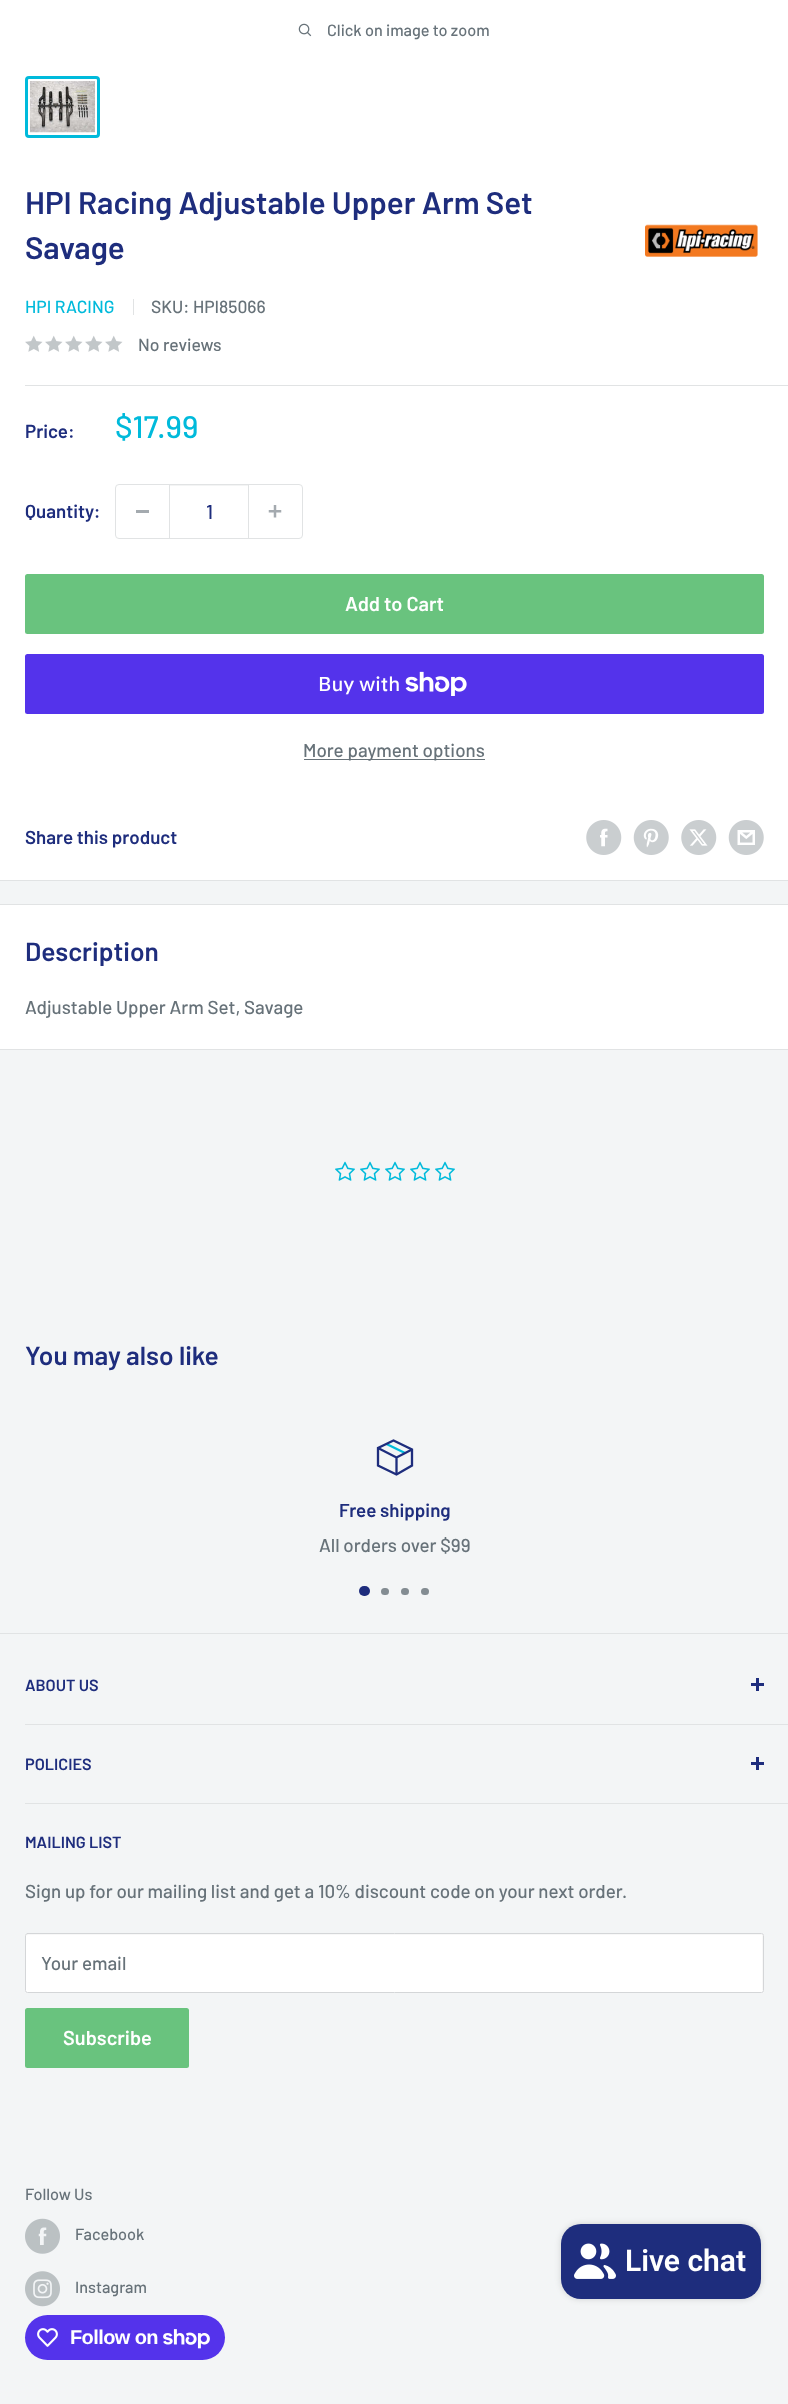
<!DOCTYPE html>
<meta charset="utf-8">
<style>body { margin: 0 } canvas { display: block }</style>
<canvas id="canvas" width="788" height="2404"></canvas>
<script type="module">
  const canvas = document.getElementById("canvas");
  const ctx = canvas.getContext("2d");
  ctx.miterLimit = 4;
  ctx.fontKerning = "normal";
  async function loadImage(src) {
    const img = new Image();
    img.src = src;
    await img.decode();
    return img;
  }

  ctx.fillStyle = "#f3f5f6";
  ctx.fillRect(0, 0, 788, 2404);
  ctx.fillStyle = "#ffffff";
  ctx.fillRect(0, 0, 788, 178);
  ctx.drawImage(await loadImage("img1.png"), 298, 23, 14, 14);
  ctx.font = "500 16.25px Barlow";
  ctx.fillStyle = "#677279";
  ctx.fillText("Click on image to zoom", 327, 36);
  ctx.beginPath();
  ctx.roundRect(26.5, 77.5, 72, 59, 2.5);
  ctx.strokeStyle = "#00badb";
  ctx.lineWidth = 3;
  ctx.stroke();
  ctx.drawImage(await loadImage("img2.png"), 30, 81, 65, 52);
  ctx.fillStyle = "#ffffff";
  ctx.beginPath();
  ctx.moveTo(0, 178);
  ctx.lineTo(0, 179);
  ctx.lineTo(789, 179);
  ctx.lineTo(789, 880);
  ctx.lineTo(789, 178);
  ctx.closePath();
  ctx.fill();
  ctx.fillRect(0, 179, 788, 701);
  ctx.fillStyle = "#e1e3e4";
  ctx.fillRect(0, 880, 788, 1);
  ctx.font = "600 31.25px Barlow";
  ctx.fillStyle = "#1e2d7d";
  ctx.fillText("HPI Racing Adjustable Upper Arm Set", 25, 214);
  ctx.fillText("Savage", 25, 259);
  ctx.font = "500 17.5px Barlow";
  ctx.fillStyle = "#00badb";
  ctx.fillText("HPI RACING", 25, 313);
  ctx.fillStyle = "#e1e3e4";
  ctx.fillRect(133, 299, 1, 16);
  ctx.fillStyle = "#677279";
  ctx.fillText("SKU: HPI85066", 151, 313);
  ctx.drawImage(await loadImage("img3.png"), 25, 335, 18, 17);
  ctx.drawImage(await loadImage("img3.png"), 45, 335, 18, 17);
  ctx.drawImage(await loadImage("img3.png"), 65, 335, 18, 17);
  ctx.drawImage(await loadImage("img3.png"), 85, 335, 18, 17);
  ctx.drawImage(await loadImage("img3.png"), 105, 335, 18, 17);
  ctx.fillText("No reviews", 138, 351);
  ctx.drawImage(await loadImage("img4.png"), 645, 224, 113, 33);
  ctx.fillStyle = "#e1e3e4";
  ctx.fillRect(25, 385, 763, 1);
  ctx.font = "600 18.75px Barlow";
  ctx.fillStyle = "#1e2d7d";
  ctx.fillText("Price:", 25, 438);
  ctx.font = "500 31.25px Barlow";
  ctx.fillStyle = "#00badb";
  ctx.fillText("$17.99", 115, 438);
  ctx.font = "600 18.75px Barlow";
  ctx.fillStyle = "#1e2d7d";
  ctx.fillText("Quantity:", 25, 518);
  ctx.beginPath();
  ctx.roundRect(115.5, 484.5, 187, 54, 3.5);
  ctx.strokeStyle = "#e1e3e4";
  ctx.lineWidth = 1;
  ctx.stroke();
  ctx.fillStyle = "#a4aaaf";
  ctx.fillRect(136, 510, 13, 3);
  ctx.fillStyle = "#f3f4f4";
  ctx.fillRect(170, 485, 78, 1);
  ctx.fillStyle = "#e1e3e4";
  ctx.fillRect(248, 485, 1, 53);
  ctx.fillRect(169, 485, 1, 53);
  ctx.font = "500 20px Barlow";
  ctx.fillStyle = "#1e2d7d";
  ctx.fillText("1", 206, 519);
  ctx.drawImage(await loadImage("img5.png"), 268, 505, 14, 13);
  ctx.fillStyle = "#69c37e";
  ctx.beginPath();
  ctx.roundRect(25, 574, 739, 60, 2.5);
  ctx.fill();
  ctx.font = "600 20px Barlow";
  ctx.fillStyle = "#ffffff";
  ctx.fillText("Add to Cart", 345, 611);
  ctx.fillStyle = "#5433eb";
  ctx.beginPath();
  ctx.roundRect(25, 654, 739, 60, 2.5);
  ctx.fill();
  ctx.font = "500 20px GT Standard";
  ctx.fillStyle = "#ffffff";
  ctx.fillText("Buy with", 318, 691);
  ctx.drawImage(await loadImage("img6.png"), 405, 671, 62, 25);
  ctx.fillStyle = "#677279";
  ctx.fillRect(304, 759, 181, 1);
  ctx.font = "500 18.75px Barlow";
  ctx.fillText("More payment options", 303, 757);
  ctx.font = "600 18.75px Barlow";
  ctx.fillStyle = "#1e2d7d";
  ctx.fillText("Share this product", 25, 844);
  ctx.drawImage(await loadImage("img7.png"), 586, 820, 36, 35);
  ctx.drawImage(await loadImage("img8.png"), 633, 820, 36, 35);
  ctx.drawImage(await loadImage("img9.png"), 681, 820, 36, 35);
  ctx.drawImage(await loadImage("img10.png"), 728, 820, 36, 35);
  ctx.fillStyle = "#ffffff";
  ctx.fillRect(0, 905, 788, 144);
  ctx.fillStyle = "#e1e3e4";
  ctx.fillRect(0, 904, 788, 1);
  ctx.fillRect(0, 1049, 788, 1);
  ctx.font = "600 26.25px Barlow";
  ctx.fillStyle = "#1e2d7d";
  ctx.fillText("Description", 25, 961);
  ctx.font = "500 18.75px Barlow";
  ctx.fillStyle = "#677279";
  ctx.fillText("Adjustable Upper Arm Set, Savage", 25, 1014);
  ctx.drawImage(await loadImage("img11.png"), 335, 1161, 20, 20);
  ctx.drawImage(await loadImage("img11.png"), 360, 1161, 20, 20);
  ctx.drawImage(await loadImage("img11.png"), 385, 1161, 20, 20);
  ctx.drawImage(await loadImage("img11.png"), 410, 1161, 20, 20);
  ctx.drawImage(await loadImage("img11.png"), 435, 1161, 20, 20);
  ctx.font = "600 26.25px Barlow";
  ctx.fillStyle = "#1e2d7d";
  ctx.fillText("You may also like", 25, 1365);
  ctx.beginPath();
  ctx.moveTo(386.5, 1444);
  ctx.lineTo(405, 1453);
  ctx.strokeStyle = "#00badb";
  ctx.lineWidth = 2.3;
  ctx.stroke();
  ctx.beginPath();
  ctx.moveTo(412, 1449.5);
  ctx.lineTo(396.5, 1457.5);
  ctx.lineTo(378, 1448);
  ctx.moveTo(396.5, 1457.5);
  ctx.lineTo(396.5, 1474.5);
  ctx.strokeStyle = "#1e2d7d";
  ctx.stroke();
  ctx.beginPath();
  ctx.moveTo(412, 1449.5);
  ctx.lineTo(412, 1465.5);
  ctx.lineTo(396.5, 1474.5);
  ctx.lineTo(378, 1465.5);
  ctx.lineTo(378, 1448);
  ctx.lineTo(393.5, 1440.5);
  ctx.closePath();
  ctx.lineCap = "square";
  ctx.stroke();
  ctx.font = "600 18.75px Barlow";
  ctx.fillText("Free shipping", 339, 1517);
  ctx.font = "500 18.75px Barlow";
  ctx.fillStyle = "#677279";
  ctx.fillText("All orders over $99", 319, 1552);
  ctx.fillStyle = "#1e2d7d";
  ctx.beginPath();
  ctx.roundRect(359, 1586, 11, 10, 5);
  ctx.fill();
  ctx.fillStyle = "#838c92";
  ctx.beginPath();
  ctx.roundRect(381, 1588, 8, 7, 3.5);
  ctx.fill();
  ctx.beginPath();
  ctx.roundRect(401, 1588, 8, 7, 3.5);
  ctx.fill();
  ctx.beginPath();
  ctx.roundRect(421, 1588, 8, 7, 3.5);
  ctx.fill();
  ctx.fillStyle = "#e1e3e4";
  ctx.fillRect(0, 1633, 788, 1);
  ctx.fillRect(25, 1724, 763, 1);
  ctx.font = "600 16.25px Barlow";
  ctx.fillStyle = "#1e2d7d";
  ctx.fillText("ABOUT US", 25, 1691);
  ctx.fillRect(756, 1678, 3, 13);
  ctx.fillRect(751, 1683, 13, 3);
  ctx.fillStyle = "#e1e3e4";
  ctx.fillRect(25, 1803, 763, 1);
  ctx.fillStyle = "#1e2d7d";
  ctx.fillText("POLICIES", 25, 1770);
  ctx.fillRect(756, 1757, 3, 13);
  ctx.fillRect(751, 1762, 13, 3);
  ctx.fillText("MAILING LIST", 25, 1848);
  ctx.font = "500 18.75px Barlow";
  ctx.fillStyle = "#677279";
  ctx.fillText("Sign up for our mailing list and get a 10% discount code on your next order.", 25, 1898);
  ctx.fillStyle = "#ffffff";
  ctx.beginPath();
  ctx.roundRect(25, 1933, 739, 60, 2.5);
  ctx.fill();
  ctx.fillStyle = "#f8f8f8";
  ctx.beginPath();
  ctx.moveTo(28, 1935);
  ctx.lineTo(762, 1935);
  ctx.lineTo(762, 1944);
  ctx.lineTo(762, 1991);
  ctx.lineTo(763, 1990);
  ctx.lineTo(763, 1935);
  ctx.lineTo(762, 1934);
  ctx.lineTo(27, 1934);
  ctx.bezierCurveTo(26, 1934, 26, 1935, 26, 1936);
  ctx.closePath();
  ctx.fill();
  ctx.beginPath();
  ctx.roundRect(25.5, 1933.5, 738, 59, 2);
  ctx.strokeStyle = "#d4d6d8";
  ctx.lineWidth = 1;
  ctx.stroke();
  ctx.fillStyle = "#677279";
  ctx.fillText("Your email", 41, 1970);
  ctx.fillStyle = "#69c37e";
  ctx.beginPath();
  ctx.roundRect(25, 2008, 164, 60, 2.5);
  ctx.fill();
  ctx.font = "600 20px Barlow";
  ctx.fillStyle = "#ffffff";
  ctx.fillText("Subscribe", 63, 2045);
  ctx.font = "500 16.25px Barlow";
  ctx.fillStyle = "#677279";
  ctx.fillText("Follow Us", 25, 2200);
  ctx.drawImage(await loadImage("img12.png"), 25, 2218, 35, 36);
  ctx.fillText("Facebook", 75, 2240);
  ctx.drawImage(await loadImage("img13.png"), 25, 2271, 35, 36);
  ctx.fillText("Instagram", 75, 2293);
  ctx.fillStyle = "#5433eb";
  ctx.beginPath();
  ctx.roundRect(25, 2315, 200, 45, 22.5);
  ctx.fill();
  ctx.drawImage(await loadImage("img14.png"), 37, 2328, 21, 19);
  ctx.letterSpacing = "-0.6px";
  ctx.font = "bold 20px Liberation Sans";
  ctx.fillStyle = "#ffffff";
  ctx.fillText("Follow on", 70, 2344);
  ctx.drawImage(await loadImage("img15.png"), 163, 2329, 47, 20);
  ctx.fillStyle = "rgba(0, 0, 0, 0.15)";
  ctx.filter = "blur(3px)";
  ctx.beginPath();
  ctx.roundRect(561, 2224, 200, 75, 20);
  ctx.fill();
  ctx.filter = "none";
  ctx.fillStyle = "#1e2d7d";
  ctx.beginPath();
  ctx.roundRect(561, 2224, 200, 75, 20);
  ctx.fill();
  ctx.drawImage(await loadImage("img16.png"), 574, 2243, 42, 36);
  ctx.letterSpacing = "0px";
  ctx.font = "600 30px Roboto";
  ctx.fillStyle = "#ffffff";
  ctx.fillText("Live chat", 625, 2271);
</script>
